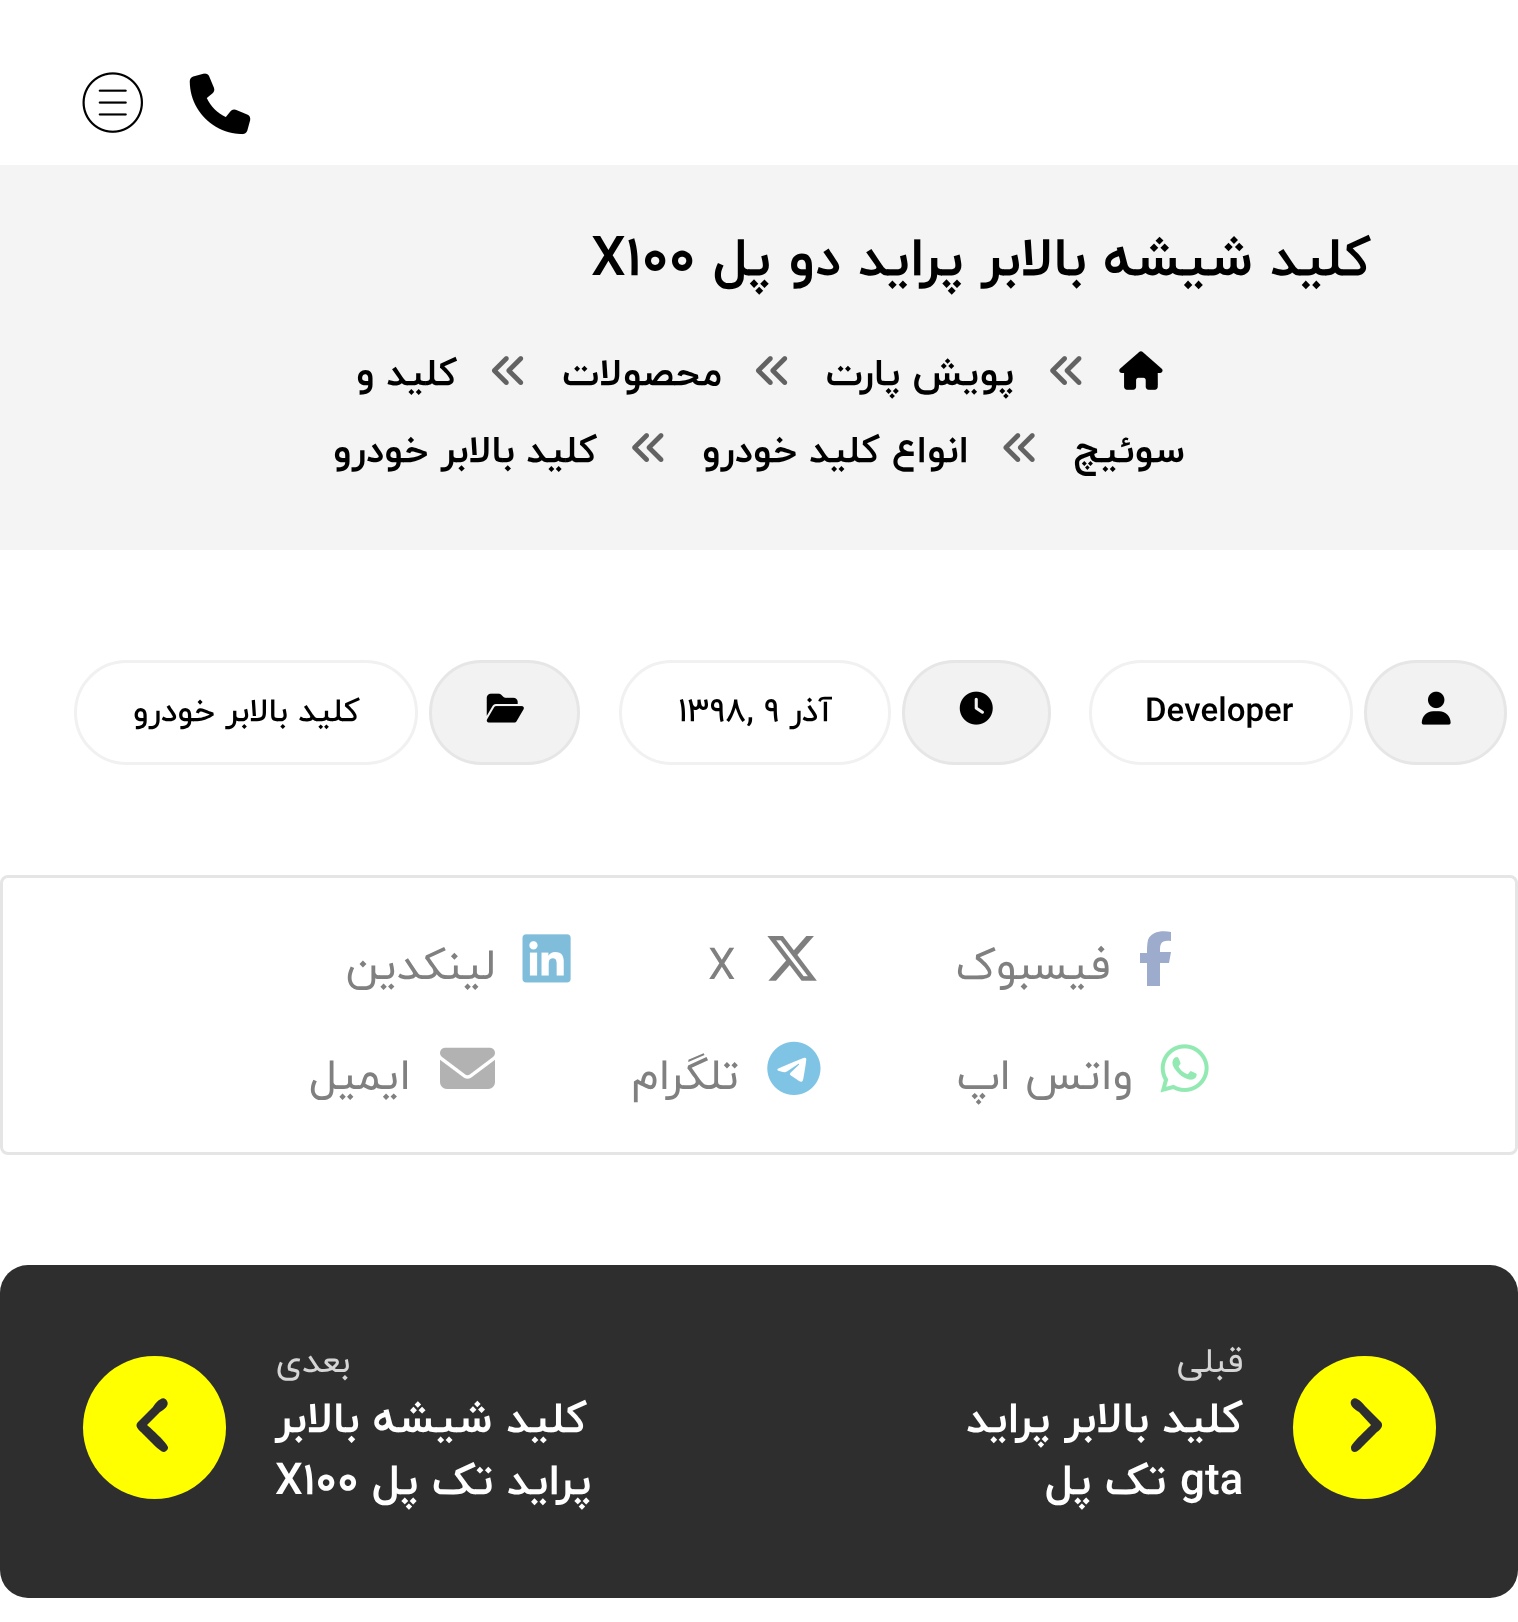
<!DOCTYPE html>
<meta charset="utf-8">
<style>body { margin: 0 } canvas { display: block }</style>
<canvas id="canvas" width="1518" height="1622"></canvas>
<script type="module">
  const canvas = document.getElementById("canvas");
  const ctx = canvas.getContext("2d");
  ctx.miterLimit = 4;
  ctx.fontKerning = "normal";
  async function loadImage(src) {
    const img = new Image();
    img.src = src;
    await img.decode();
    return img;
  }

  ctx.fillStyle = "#ffffff";
  ctx.fillRect(0, 0, 1518, 1622);
  ctx.drawImage(await loadImage("img1.png"), 189, 73, 62, 62);
  ctx.drawImage(await loadImage("img2.png"), 82, 72, 61, 61);
  ctx.fillStyle = "#f4f4f4";
  ctx.fillRect(0, 165, 1518, 385);
  ctx.direction = "rtl";
  ctx.font = "bold 55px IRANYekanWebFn";
  ctx.fillStyle = "#000000";
  ctx.fillText("کلید شیشه بالابر پراید دو پل", 1371, 275);
  ctx.direction = "ltr";
  ctx.fillText("X۱۰۰", 591, 275);
  ctx.drawImage(await loadImage("img3.png"), 1119, 351, 44, 39);
  ctx.drawImage(await loadImage("img4.png"), 1050, 356, 32, 29);
  ctx.direction = "rtl";
  ctx.font = "bold 38.5px IRANYekanWebFn";
  ctx.fillText("پویش پارت", 1014, 385);
  ctx.drawImage(await loadImage("img5.png"), 755, 356, 33, 29);
  ctx.fillText("محصولات", 722, 385);
  ctx.drawImage(await loadImage("img5.png"), 491, 356, 33, 29);
  ctx.fillText("کلید و", 457, 385);
  ctx.fillText("سوئیچ", 1185, 462);
  ctx.drawImage(await loadImage("img6.png"), 1003, 433, 32, 29);
  ctx.fillText("انواع کلید خودرو", 969, 462);
  ctx.drawImage(await loadImage("img4.png"), 632, 433, 32, 29);
  ctx.fillText("کلید بالابر خودرو", 597, 462);
  ctx.fillStyle = "#f2f2f2";
  ctx.beginPath();
  ctx.roundRect(1364, 660, 143, 105, 52.5);
  ctx.fill();
  ctx.beginPath();
  ctx.roundRect(1365.5, 661.5, 140, 102, 51);
  ctx.strokeStyle = "rgba(167, 167, 167, 0.16)";
  ctx.lineWidth = 3;
  ctx.stroke();
  ctx.drawImage(await loadImage("img7.png"), 1421, 691, 30, 34);
  ctx.beginPath();
  ctx.roundRect(1090.5, 661.5, 261, 102, 51);
  ctx.strokeStyle = "#f1f1f1";
  ctx.stroke();
  ctx.direction = "ltr";
  ctx.font = "500 33px IRANYekanWebFn";
  ctx.fillStyle = "#000000";
  ctx.fillText("Developer", 1145, 721);
  ctx.fillStyle = "#f2f2f2";
  ctx.beginPath();
  ctx.roundRect(902, 660, 149, 105, 52.5);
  ctx.fill();
  ctx.beginPath();
  ctx.roundRect(903.5, 661.5, 146, 102, 51);
  ctx.strokeStyle = "rgba(167, 167, 167, 0.16)";
  ctx.stroke();
  ctx.drawImage(await loadImage("img8.png"), 959, 691, 34, 34);
  ctx.beginPath();
  ctx.roundRect(620.5, 661.5, 269, 102, 51);
  ctx.strokeStyle = "#f1f1f1";
  ctx.stroke();
  ctx.direction = "rtl";
  ctx.fillStyle = "#000000";
  ctx.fillText("آذر", 832, 721);
  ctx.direction = "ltr";
  ctx.fillText("۱۳۹۸, ۹", 678, 721);
  ctx.fillStyle = "#f2f2f2";
  ctx.beginPath();
  ctx.roundRect(429, 660, 151, 105, 52.5);
  ctx.fill();
  ctx.beginPath();
  ctx.roundRect(430.5, 661.5, 148, 102, 51);
  ctx.strokeStyle = "rgba(167, 167, 167, 0.16)";
  ctx.stroke();
  ctx.drawImage(await loadImage("img9.png"), 486, 693, 38, 30);
  ctx.beginPath();
  ctx.roundRect(75.5, 661.5, 341, 102, 51);
  ctx.strokeStyle = "#f1f1f1";
  ctx.stroke();
  ctx.direction = "rtl";
  ctx.fillStyle = "#000000";
  ctx.fillText("کلید بالابر خودرو", 360, 721);
  ctx.beginPath();
  ctx.roundRect(1.5, 876.5, 1515, 277, 6.5);
  ctx.strokeStyle = "#e5e5e5";
  ctx.stroke();
  ctx.fillStyle = "#9daccc";
  ctx.beginPath();
  ctx.moveTo(1147, 963);
  ctx.lineTo(1147, 986);
  ctx.lineTo(1147, 963);
  ctx.lineTo(1147, 986);
  ctx.lineTo(1160, 986);
  ctx.lineTo(1160, 963);
  ctx.lineTo(1169, 963);
  ctx.lineTo(1171, 952);
  ctx.lineTo(1160, 952);
  ctx.bezierCurveTo(1160, 943, 1161, 940, 1171, 941);
  ctx.lineTo(1171, 932);
  ctx.bezierCurveTo(1163, 930, 1151, 931, 1148, 940);
  ctx.bezierCurveTo(1147, 944, 1147, 949, 1147, 953);
  ctx.lineTo(1140, 953);
  ctx.lineTo(1140, 963);
  ctx.closePath();
  ctx.fill();
  ctx.font = "44px IRANYekanWebFn";
  ctx.fillStyle = "#808080";
  ctx.fillText("فیسبوک", 1110, 979);
  ctx.drawImage(await loadImage("img10.png"), 767, 936, 50, 45);
  ctx.direction = "ltr";
  ctx.fillText("X", 708, 979);
  ctx.drawImage(await loadImage("img11.png"), 522, 934, 49, 49);
  ctx.direction = "rtl";
  ctx.fillText("لینکدین", 495, 979);
  ctx.drawImage(await loadImage("img12.png"), 1160, 1044, 49, 49);
  ctx.fillText("واتس اپ", 1133, 1089);
  ctx.drawImage(await loadImage("img13.png"), 767, 1041, 54, 54);
  ctx.fillText("تلگرام", 739, 1089);
  ctx.drawImage(await loadImage("img14.png"), 440, 1047, 55, 42);
  ctx.fillText("ایمیل", 411, 1089);
  ctx.fillStyle = "#2e2e2e";
  ctx.beginPath();
  ctx.roundRect(0, 1265, 1518, 333, 28);
  ctx.fill();
  ctx.fillStyle = "#ffff00";
  ctx.beginPath();
  ctx.arc(1364.5, 1427.5, 71.5, 0, Math.PI * 2);
  ctx.fill();
  ctx.fillStyle = "#2e2e2e";
  ctx.beginPath();
  ctx.moveTo(1381, 1422);
  ctx.bezierCurveTo(1384, 1426, 1380, 1430, 1377, 1432);
  ctx.lineTo(1362, 1447);
  ctx.bezierCurveTo(1360, 1449, 1356, 1454, 1352, 1451);
  ctx.bezierCurveTo(1351, 1450, 1351, 1448, 1351, 1447);
  ctx.bezierCurveTo(1352, 1443, 1368, 1428, 1371, 1425);
  ctx.lineTo(1359, 1412);
  ctx.bezierCurveTo(1356, 1410, 1349, 1406, 1351, 1401);
  ctx.bezierCurveTo(1355, 1393, 1364, 1405, 1366, 1407);
  ctx.closePath();
  ctx.fill();
  ctx.font = "35px IRANYekanWebFn";
  ctx.fillStyle = "#d5d5d5";
  ctx.fillText("قبلی", 1243, 1372);
  ctx.font = "bold 44px IRANYekanWebFn";
  ctx.fillStyle = "#ffffff";
  ctx.fillText("کلید بالابر پراید", 1243, 1432);
  ctx.direction = "ltr";
  ctx.fillText("gta", 1180, 1494);
  ctx.direction = "rtl";
  ctx.fillText("تک پل", 1166, 1494);
  ctx.font = "35px IRANYekanWebFn";
  ctx.fillStyle = "#d5d5d5";
  ctx.fillText("بعدی", 350, 1372);
  ctx.font = "bold 44px IRANYekanWebFn";
  ctx.fillStyle = "#ffffff";
  ctx.fillText("کلید شیشه بالابر", 587, 1432);
  ctx.fillText("پراید تک پل", 591, 1494);
  ctx.direction = "ltr";
  ctx.fillText("X۱۰۰", 275, 1494);
  ctx.fillStyle = "#ffff00";
  ctx.beginPath();
  ctx.arc(154.5, 1427.5, 71.5, 0, Math.PI * 2);
  ctx.fill();
  ctx.fillStyle = "#2e2e2e";
  ctx.beginPath();
  ctx.moveTo(138, 1422);
  ctx.bezierCurveTo(134, 1426, 139, 1430, 141, 1432);
  ctx.lineTo(156, 1447);
  ctx.bezierCurveTo(159, 1449, 163, 1454, 166, 1451);
  ctx.bezierCurveTo(168, 1450, 168, 1448, 168, 1447);
  ctx.bezierCurveTo(167, 1443, 151, 1428, 147, 1425);
  ctx.lineTo(160, 1412);
  ctx.bezierCurveTo(163, 1410, 170, 1406, 167, 1401);
  ctx.bezierCurveTo(163, 1393, 154, 1405, 153, 1407);
  ctx.closePath();
  ctx.fill();
</script>
